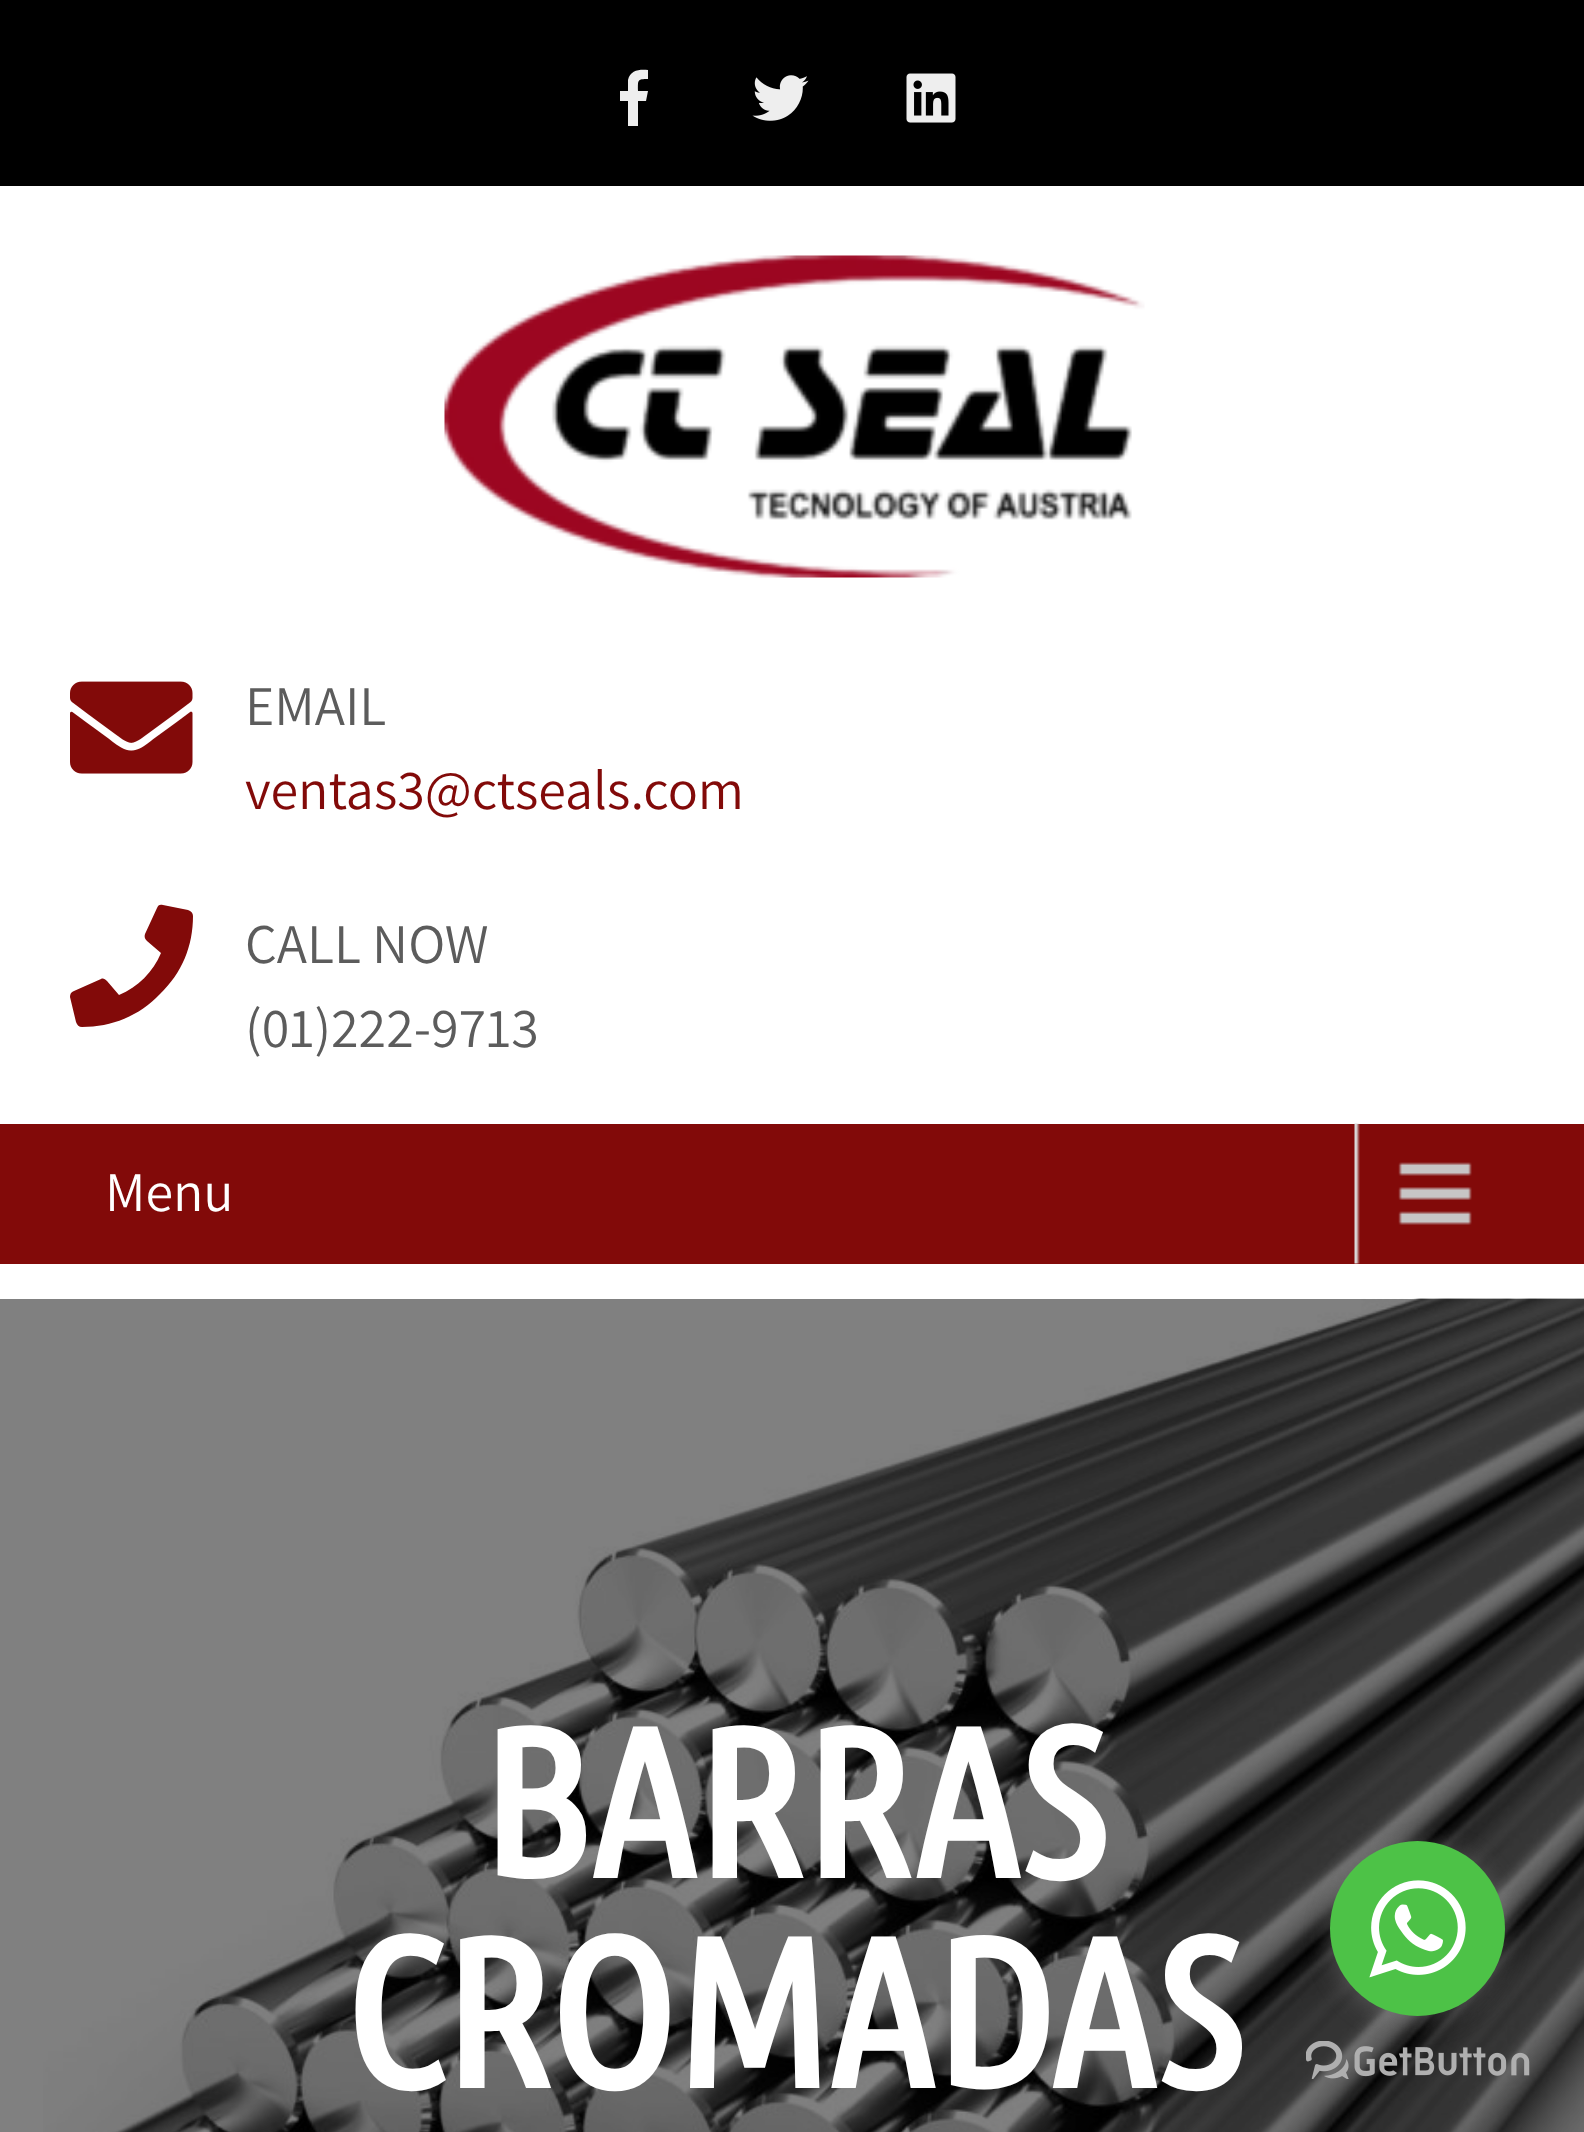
<!DOCTYPE html>
<meta charset="utf-8">
<style>body { margin: 0 } canvas { display: block }</style>
<canvas id="canvas" width="1584" height="2132"></canvas>
<script type="module">
  const canvas = document.getElementById("canvas");
  const ctx = canvas.getContext("2d");
  ctx.miterLimit = 4;
  ctx.fontKerning = "normal";
  async function loadImage(src) {
    const img = new Image();
    img.src = src;
    await img.decode();
    return img;
  }

  ctx.fillStyle = "#ffffff";
  ctx.fillRect(0, 0, 1584, 2132);
  ctx.fillStyle = "#808080";
  ctx.fillRect(0, 1299, 43, 833);
  ctx.fillStyle = "#000000";
  ctx.fillRect(0, 0, 1584, 186);
  ctx.fillStyle = "#eeeeee";
  ctx.beginPath();
  ctx.moveTo(628, 126);
  ctx.lineTo(628, 101);
  ctx.lineTo(620, 101);
  ctx.lineTo(620, 91);
  ctx.lineTo(628, 91);
  ctx.lineTo(628, 80);
  ctx.bezierCurveTo(630, 70, 640, 69, 648, 70);
  ctx.lineTo(648, 79);
  ctx.bezierCurveTo(637, 79, 638, 80, 638, 91);
  ctx.lineTo(648, 91);
  ctx.lineTo(646, 101);
  ctx.lineTo(638, 101);
  ctx.lineTo(638, 126);
  ctx.closePath();
  ctx.fill();
  ctx.drawImage(await loadImage("img1.png"), 752, 75, 57, 46);
  ctx.drawImage(await loadImage("img2.png"), 906, 73, 50, 50);
  ctx.drawImage(await loadImage("img3.png"), 444, 255, 701, 323);
  ctx.drawImage(await loadImage("img4.png"), 70, 681, 123, 93);
  ctx.font = "56px Assistant";
  ctx.fillStyle = "#5c5c5c";
  ctx.fillText("EMAIL", 245, 725);
  ctx.fillStyle = "#820a09";
  ctx.fillText("ventas3@ctseals.com", 245, 809);
  ctx.beginPath();
  ctx.moveTo(188, 910);
  ctx.bezierCurveTo(191, 911, 193, 913, 193, 916);
  ctx.bezierCurveTo(193, 946, 182, 973, 160, 994);
  ctx.bezierCurveTo(139, 1016, 112, 1027, 82, 1027);
  ctx.bezierCurveTo(79, 1027, 77, 1025, 76, 1022);
  ctx.lineTo(70, 997);
  ctx.bezierCurveTo(70, 994, 71, 992, 74, 991);
  ctx.lineTo(101, 979);
  ctx.bezierCurveTo(103, 978, 105, 979, 107, 981);
  ctx.lineTo(119, 995);
  ctx.bezierCurveTo(138, 987, 153, 972, 161, 953);
  ctx.lineTo(147, 941);
  ctx.bezierCurveTo(145, 939, 144, 937, 145, 934);
  ctx.lineTo(157, 908);
  ctx.bezierCurveTo(158, 905, 160, 904, 163, 905);
  ctx.closePath();
  ctx.fill();
  ctx.fillStyle = "#5c5c5c";
  ctx.fillText("CALL NOW", 245, 963);
  ctx.fillText("(01)222-9713", 245, 1047);
  ctx.fillStyle = "#820a09";
  ctx.fillRect(0, 1124, 1584, 140);
  ctx.drawImage(await loadImage("img5.png"), 1354, 1123, 118, 141);
  ctx.fillStyle = "#ffffff";
  ctx.fillText("Menu", 105, 1211);
  ctx.drawImage(await loadImage("img6.png"), 43, 1298, 1541, 834);
  ctx.font = "bold 210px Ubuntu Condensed";
  ctx.fillText("BARRAS", 480, 1878);
  ctx.fillText("CROMADAS", 344, 2088);
  ctx.drawImage(await loadImage("img8.png"), 1306, 2041, 224, 38);
  ctx.fillStyle = "rgba(136, 136, 136, 0.4)";
  ctx.filter = "blur(12px)";
  ctx.beginPath();
  ctx.roundRect(1330, 1845, 175, 175, 87.5);
  ctx.fill();
  ctx.filter = "none";
  ctx.fillStyle = "#4dc247";
  ctx.beginPath();
  ctx.arc(1417.5, 1928.5, 87.5, 0, Math.PI * 2);
  ctx.fill();
  ctx.drawImage(await loadImage("img7.png"), 1369, 1880, 97, 98);
</script>
